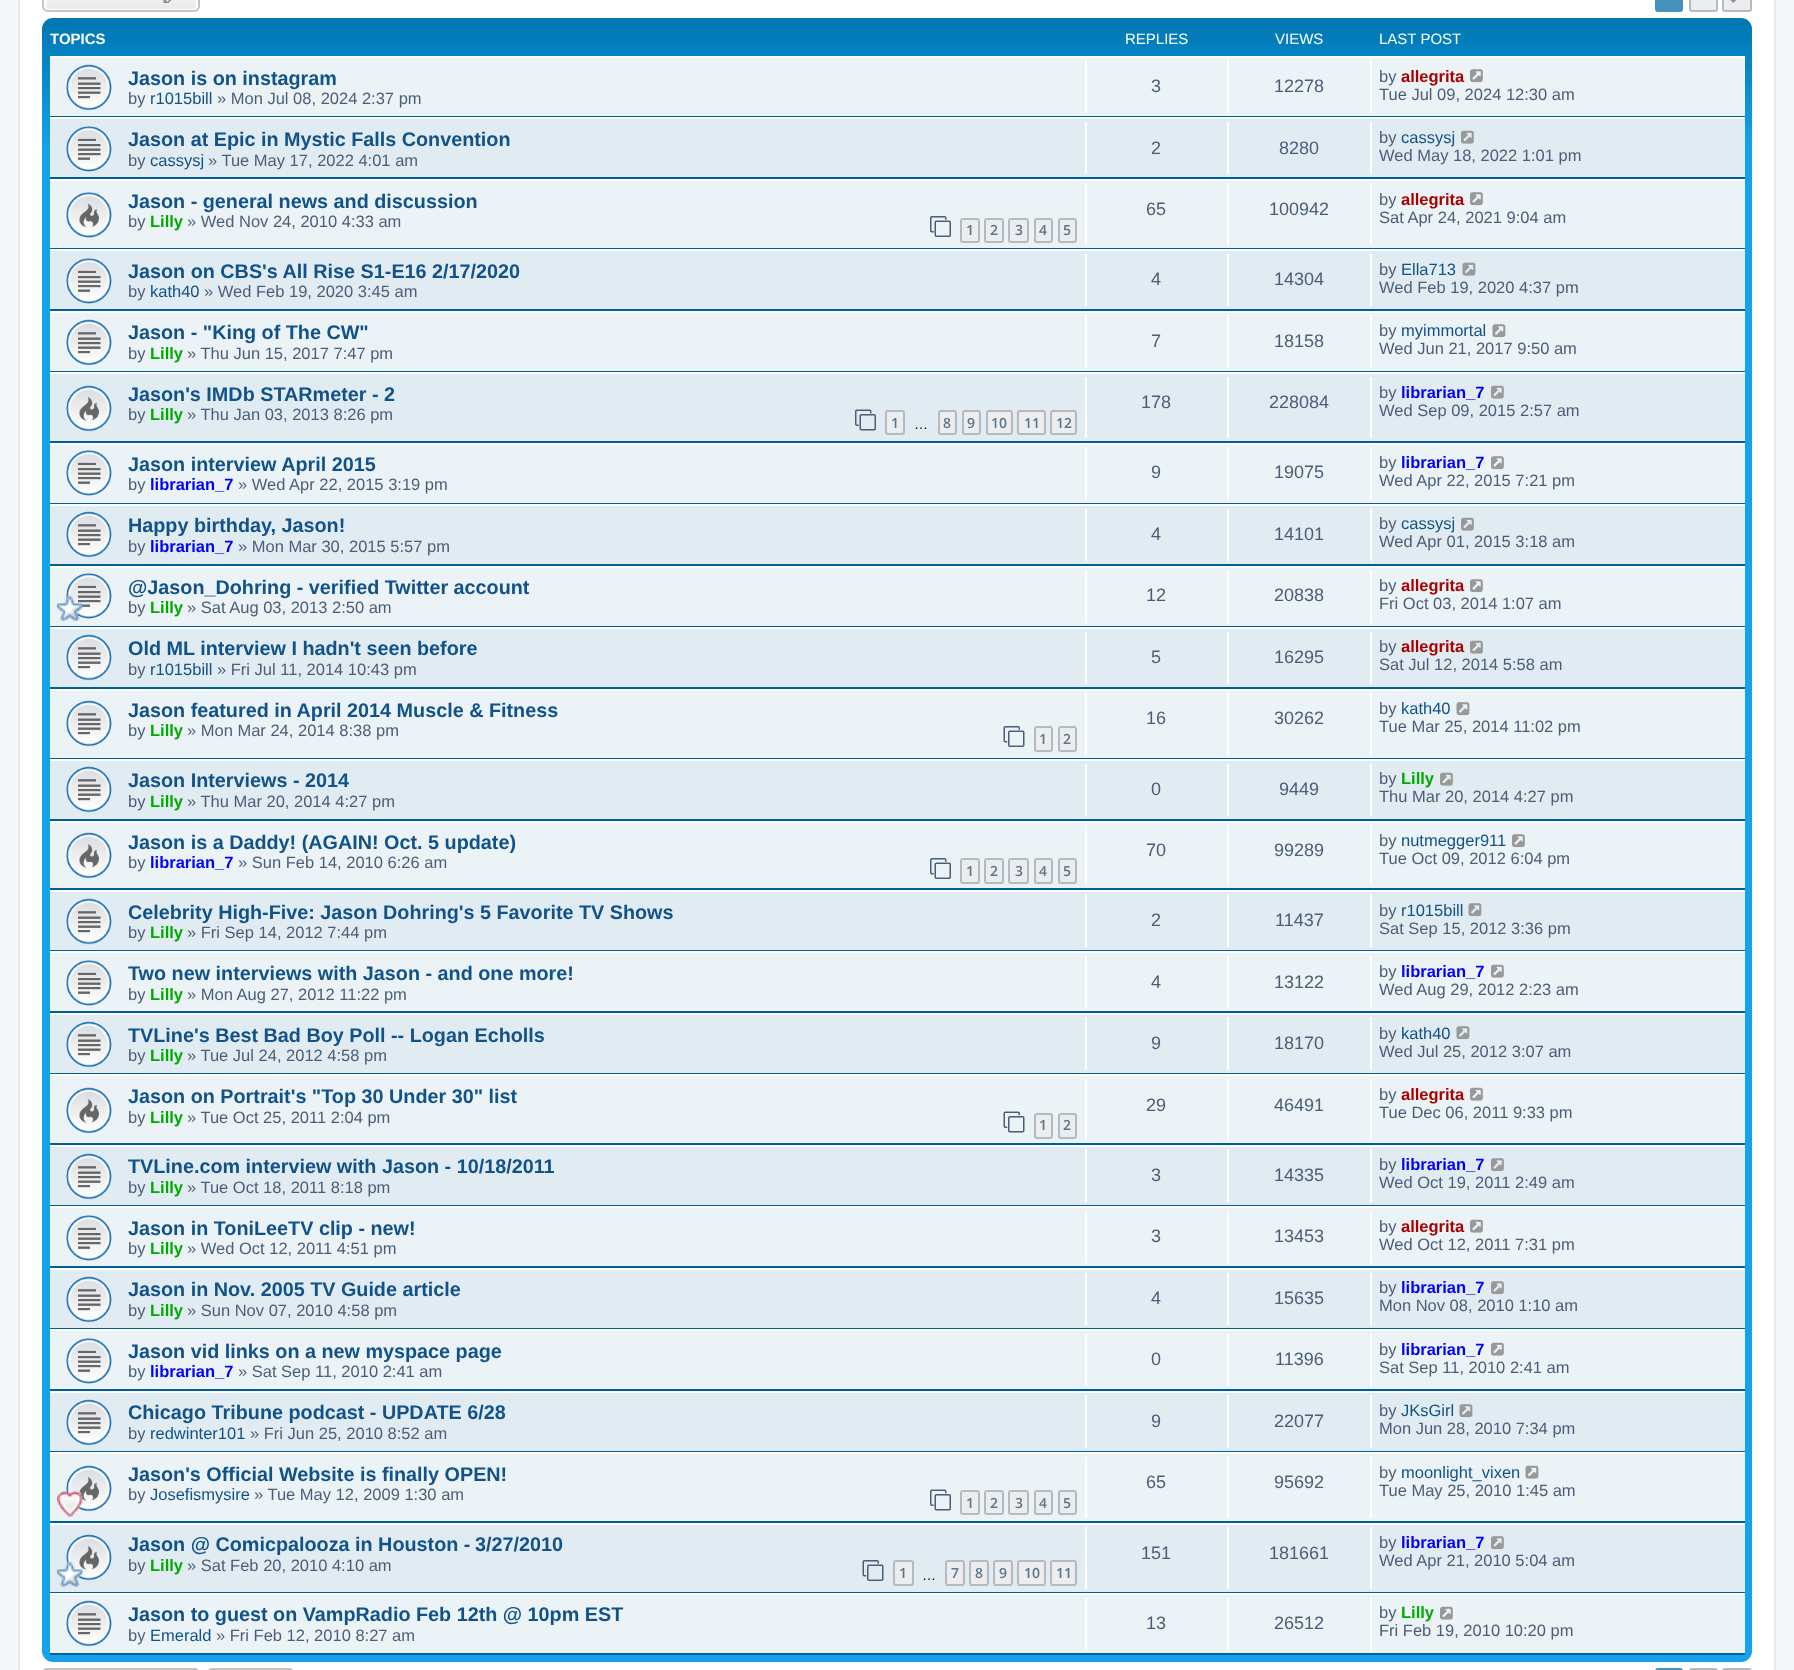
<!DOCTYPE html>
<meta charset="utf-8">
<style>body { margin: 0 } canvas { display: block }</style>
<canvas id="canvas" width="1794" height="1670"></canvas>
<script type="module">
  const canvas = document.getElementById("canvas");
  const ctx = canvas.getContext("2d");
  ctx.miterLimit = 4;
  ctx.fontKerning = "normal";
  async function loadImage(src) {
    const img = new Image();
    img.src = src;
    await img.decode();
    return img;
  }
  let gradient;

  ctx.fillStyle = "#f5f7fa";
  ctx.fillRect(0, 0, 1794, 1670);
  ctx.fillStyle = "#ffffff";
  ctx.beginPath();
  ctx.rect(19, -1, 1756, 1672);
  ctx.fill();
  ctx.strokeStyle = "#e6e9ed";
  ctx.lineWidth = 2;
  ctx.stroke();
  ctx.save();
  ctx.beginPath();
  ctx.roundRect(42, -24, 158, 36, 6);
  ctx.clip();
  gradient = ctx.createLinearGradient(121, -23, 121, 11);
  gradient.addColorStop(0, "#ffffff");
  gradient.addColorStop(1, "#e9e9e9");
  ctx.fillStyle = gradient;
  ctx.fillRect(42, 0, 158, 11);
  ctx.restore();
  ctx.beginPath();
  ctx.roundRect(45, -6, 152, 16, 4);
  ctx.strokeStyle = "#ffffff";
  ctx.stroke();
  ctx.beginPath();
  ctx.roundRect(43, -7, 156, 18, 5);
  ctx.strokeStyle = "#c7c3bf";
  ctx.stroke();
  ctx.drawImage(await loadImage("img1.png"), 163, 0, 9, 3);
  ctx.fillStyle = "#4692bf";
  ctx.beginPath();
  ctx.roundRect(1656, -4, 26, 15, 2);
  ctx.fill();
  ctx.strokeStyle = "#4692bf";
  ctx.stroke();
  ctx.fillStyle = "#ecedee";
  ctx.beginPath();
  ctx.roundRect(1690, -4, 27, 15, 2);
  ctx.fill();
  ctx.strokeStyle = "#b4bac0";
  ctx.stroke();
  ctx.beginPath();
  ctx.roundRect(1723, -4, 28, 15, 2);
  ctx.fill();
  ctx.stroke();
  ctx.drawImage(await loadImage("img2.png"), 1730, 0, 6, 3);
  gradient = ctx.createLinearGradient(897, 18, 897, 1662);
  gradient.addColorStop(0, "#6aceff");
  gradient.addColorStop(0, "#0076b1");
  gradient.addColorStop(0.08, "#12a3eb");
  gradient.addColorStop(1, "#12a3eb");
  ctx.fillStyle = gradient;
  ctx.beginPath();
  ctx.roundRect(42, 18, 1710, 1644, 11);
  ctx.fill();
  ctx.save();
  ctx.beginPath();
  ctx.rect(50, 26, 1695, 30);
  ctx.clip();
  ctx.font = "bold 15px Liberation Sans";
  ctx.fillStyle = "#ffffff";
  ctx.fillText("TOPICS", 50, 44);
  ctx.restore();
  ctx.font = "15px Liberation Sans";
  ctx.fillStyle = "#ffffff";
  ctx.fillText("REPLIES", 1125, 44);
  ctx.fillText("VIEWS", 1275, 44);
  ctx.fillText("LAST POST", 1379, 44);
  ctx.fillStyle = "#ecf3f7";
  ctx.fillRect(50, 58, 1695, 58);
  ctx.fillStyle = "#ffffff";
  ctx.fillRect(50, 56, 1695, 2);
  ctx.fillStyle = "#00608f";
  ctx.fillRect(50, 116, 1695, 1);
  ctx.drawImage(await loadImage("img3.png"), 66, 64, 46, 47);
  ctx.font = "bold 19.8px Liberation Sans";
  ctx.fillStyle = "#105289";
  ctx.fillText("Jason is on instagram", 128, 85);
  ctx.font = "16.5px Liberation Sans";
  ctx.fillStyle = "#4c5d77";
  ctx.fillText("by", 128, 104);
  ctx.fillStyle = "#105289";
  ctx.fillText("r1015bill", 150, 104);
  ctx.fillStyle = "#4c5d77";
  ctx.fillText("» Mon Jul 08, 2024 2:37 pm", 217, 104);
  ctx.fillStyle = "#ffffff";
  ctx.fillRect(1085, 60, 2, 53);
  ctx.font = "18px Liberation Sans";
  ctx.fillStyle = "#4c5d77";
  ctx.fillText("3", 1151, 92);
  ctx.fillStyle = "#ffffff";
  ctx.fillRect(1227, 60, 2, 53);
  ctx.fillStyle = "#4c5d77";
  ctx.fillText("12278", 1274, 92);
  ctx.fillStyle = "#ffffff";
  ctx.fillRect(1370, 60, 2, 53);
  ctx.font = "16.5px Liberation Sans";
  ctx.fillStyle = "#4c5d77";
  ctx.fillText("by", 1379, 82);
  ctx.font = "bold 16.5px Liberation Sans";
  ctx.fillStyle = "#aa0000";
  ctx.fillText("allegrita", 1401, 82);
  ctx.drawImage(await loadImage("img4.png"), 1470, 69, 13, 14);
  ctx.font = "16.5px Liberation Sans";
  ctx.fillStyle = "#4c5d77";
  ctx.fillText("Tue Jul 09, 2024 12:30 am", 1379, 100);
  ctx.fillStyle = "#e1ebf2";
  ctx.fillRect(50, 119, 1695, 58);
  ctx.fillStyle = "#ffffff";
  ctx.fillRect(50, 117, 1695, 2);
  ctx.fillStyle = "#00608f";
  ctx.fillRect(50, 177, 1695, 2);
  ctx.drawImage(await loadImage("img5.png"), 66, 126, 46, 46);
  ctx.font = "bold 19.8px Liberation Sans";
  ctx.fillStyle = "#105289";
  ctx.fillText("Jason at Epic in Mystic Falls Convention", 128, 146);
  ctx.font = "16.5px Liberation Sans";
  ctx.fillStyle = "#4c5d77";
  ctx.fillText("by", 128, 166);
  ctx.fillStyle = "#105289";
  ctx.fillText("cassysj", 150, 166);
  ctx.fillStyle = "#4c5d77";
  ctx.fillText("» Tue May 17, 2022 4:01 am", 208, 166);
  ctx.fillStyle = "#ffffff";
  ctx.fillRect(1085, 122, 2, 52);
  ctx.font = "18px Liberation Sans";
  ctx.fillStyle = "#4c5d77";
  ctx.fillText("2", 1151, 154);
  ctx.fillStyle = "#ffffff";
  ctx.fillRect(1227, 122, 2, 52);
  ctx.fillStyle = "#4c5d77";
  ctx.fillText("8280", 1279, 154);
  ctx.fillStyle = "#ffffff";
  ctx.fillRect(1370, 122, 2, 52);
  ctx.font = "16.5px Liberation Sans";
  ctx.fillStyle = "#4c5d77";
  ctx.fillText("by", 1379, 143);
  ctx.fillStyle = "#105289";
  ctx.fillText("cassysj", 1401, 143);
  ctx.drawImage(await loadImage("img6.png"), 1461, 130, 13, 14);
  ctx.fillStyle = "#4c5d77";
  ctx.fillText("Wed May 18, 2022 1:01 pm", 1379, 161);
  ctx.fillStyle = "#ecf3f7";
  ctx.fillRect(50, 181, 1695, 67);
  ctx.fillStyle = "#ffffff";
  ctx.fillRect(50, 179, 1695, 2);
  ctx.fillStyle = "#00608f";
  ctx.fillRect(50, 248, 1695, 1);
  ctx.drawImage(await loadImage("img7.png"), 66, 192, 46, 46);
  ctx.font = "bold 19.8px Liberation Sans";
  ctx.fillStyle = "#105289";
  ctx.fillText("Jason - general news and discussion", 128, 208);
  ctx.font = "16.5px Liberation Sans";
  ctx.fillStyle = "#4c5d77";
  ctx.fillText("by", 128, 227);
  ctx.font = "bold 16.5px Liberation Sans";
  ctx.fillStyle = "#00aa00";
  ctx.fillText("Lilly", 150, 227);
  ctx.font = "16.5px Liberation Sans";
  ctx.fillStyle = "#4c5d77";
  ctx.fillText("» Wed Nov 24, 2010 4:33 am", 187, 227);
  ctx.drawImage(await loadImage("img8.png"), 930, 216, 21, 21);
  ctx.fillStyle = "#ecedee";
  ctx.beginPath();
  ctx.roundRect(961, 219, 18, 23, 2);
  ctx.fill();
  ctx.stroke();
  ctx.font = "600 14px Open Sans";
  ctx.fillStyle = "#5c758c";
  ctx.fillText("1", 966, 235);
  ctx.fillStyle = "#ecedee";
  ctx.beginPath();
  ctx.roundRect(985, 219, 18, 23, 2);
  ctx.fill();
  ctx.stroke();
  ctx.fillStyle = "#5c758c";
  ctx.fillText("2", 990, 235);
  ctx.fillStyle = "#ecedee";
  ctx.beginPath();
  ctx.roundRect(1009, 219, 19, 23, 2);
  ctx.fill();
  ctx.stroke();
  ctx.fillStyle = "#5c758c";
  ctx.fillText("3", 1015, 235);
  ctx.fillStyle = "#ecedee";
  ctx.beginPath();
  ctx.roundRect(1035, 219, 17, 23, 2);
  ctx.fill();
  ctx.stroke();
  ctx.fillStyle = "#5c758c";
  ctx.fillText("4", 1039, 235);
  ctx.fillStyle = "#ecedee";
  ctx.beginPath();
  ctx.roundRect(1059, 219, 17, 23, 2);
  ctx.fill();
  ctx.stroke();
  ctx.fillStyle = "#5c758c";
  ctx.fillText("5", 1063, 235);
  ctx.fillStyle = "#ffffff";
  ctx.fillRect(1085, 183, 2, 62);
  ctx.font = "18px Liberation Sans";
  ctx.fillStyle = "#4c5d77";
  ctx.fillText("65", 1146, 215);
  ctx.fillStyle = "#ffffff";
  ctx.fillRect(1227, 183, 2, 62);
  ctx.fillStyle = "#4c5d77";
  ctx.fillText("100942", 1269, 215);
  ctx.fillStyle = "#ffffff";
  ctx.fillRect(1370, 183, 2, 62);
  ctx.font = "16.5px Liberation Sans";
  ctx.fillStyle = "#4c5d77";
  ctx.fillText("by", 1379, 205);
  ctx.font = "bold 16.5px Liberation Sans";
  ctx.fillStyle = "#aa0000";
  ctx.fillText("allegrita", 1401, 205);
  ctx.drawImage(await loadImage("img4.png"), 1470, 192, 13, 14);
  ctx.font = "16.5px Liberation Sans";
  ctx.fillStyle = "#4c5d77";
  ctx.fillText("Sat Apr 24, 2021 9:04 am", 1379, 223);
  ctx.fillStyle = "#e1ebf2";
  ctx.fillRect(50, 251, 1695, 58);
  ctx.fillStyle = "#ffffff";
  ctx.fillRect(50, 249, 1695, 2);
  ctx.fillStyle = "#00608f";
  ctx.fillRect(50, 309, 1695, 2);
  ctx.drawImage(await loadImage("img5.png"), 66, 258, 46, 46);
  ctx.font = "bold 19.8px Liberation Sans";
  ctx.fillStyle = "#105289";
  ctx.fillText("Jason on CBS's All Rise S1-E16 2/17/2020", 128, 278);
  ctx.font = "16.5px Liberation Sans";
  ctx.fillStyle = "#4c5d77";
  ctx.fillText("by", 128, 297);
  ctx.fillStyle = "#105289";
  ctx.fillText("kath40", 150, 297);
  ctx.fillStyle = "#4c5d77";
  ctx.fillText("» Wed Feb 19, 2020 3:45 am", 204, 297);
  ctx.fillStyle = "#ffffff";
  ctx.fillRect(1085, 254, 2, 52);
  ctx.font = "18px Liberation Sans";
  ctx.fillStyle = "#4c5d77";
  ctx.fillText("4", 1151, 285);
  ctx.fillStyle = "#ffffff";
  ctx.fillRect(1227, 254, 2, 52);
  ctx.fillStyle = "#4c5d77";
  ctx.fillText("14304", 1274, 285);
  ctx.fillStyle = "#ffffff";
  ctx.fillRect(1370, 254, 2, 52);
  ctx.font = "16.5px Liberation Sans";
  ctx.fillStyle = "#4c5d77";
  ctx.fillText("by", 1379, 275);
  ctx.fillStyle = "#105289";
  ctx.fillText("Ella713", 1401, 275);
  ctx.drawImage(await loadImage("img9.png"), 1462, 262, 14, 14);
  ctx.fillStyle = "#4c5d77";
  ctx.fillText("Wed Feb 19, 2020 4:37 pm", 1379, 293);
  ctx.fillStyle = "#ecf3f7";
  ctx.fillRect(50, 313, 1695, 58);
  ctx.fillStyle = "#ffffff";
  ctx.fillRect(50, 311, 1695, 2);
  ctx.fillStyle = "#00608f";
  ctx.fillRect(50, 371, 1695, 1);
  ctx.drawImage(await loadImage("img3.png"), 66, 319, 46, 47);
  ctx.font = "bold 19.8px Liberation Sans";
  ctx.fillStyle = "#105289";
  ctx.fillText("Jason - \"King of The CW\"", 128, 339);
  ctx.font = "16.5px Liberation Sans";
  ctx.fillStyle = "#4c5d77";
  ctx.fillText("by", 128, 359);
  ctx.font = "bold 16.5px Liberation Sans";
  ctx.fillStyle = "#00aa00";
  ctx.fillText("Lilly", 150, 359);
  ctx.font = "16.5px Liberation Sans";
  ctx.fillStyle = "#4c5d77";
  ctx.fillText("» Thu Jun 15, 2017 7:47 pm", 187, 359);
  ctx.fillStyle = "#ffffff";
  ctx.fillRect(1085, 315, 2, 53);
  ctx.font = "18px Liberation Sans";
  ctx.fillStyle = "#4c5d77";
  ctx.fillText("7", 1151, 347);
  ctx.fillStyle = "#ffffff";
  ctx.fillRect(1227, 315, 2, 53);
  ctx.fillStyle = "#4c5d77";
  ctx.fillText("18158", 1274, 347);
  ctx.fillStyle = "#ffffff";
  ctx.fillRect(1370, 315, 2, 53);
  ctx.font = "16.5px Liberation Sans";
  ctx.fillStyle = "#4c5d77";
  ctx.fillText("by", 1379, 336);
  ctx.fillStyle = "#105289";
  ctx.fillText("myimmortal", 1401, 336);
  ctx.drawImage(await loadImage("img10.png"), 1492, 324, 14, 14);
  ctx.fillStyle = "#4c5d77";
  ctx.fillText("Wed Jun 21, 2017 9:50 am", 1379, 354);
  ctx.fillStyle = "#e1ebf2";
  ctx.fillRect(50, 374, 1695, 67);
  ctx.fillStyle = "#ffffff";
  ctx.fillRect(50, 372, 1695, 2);
  ctx.fillStyle = "#00608f";
  ctx.fillRect(50, 441, 1695, 2);
  ctx.drawImage(await loadImage("img11.png"), 66, 385, 46, 47);
  ctx.font = "bold 19.8px Liberation Sans";
  ctx.fillStyle = "#105289";
  ctx.fillText("Jason's IMDb STARmeter - 2", 128, 401);
  ctx.font = "16.5px Liberation Sans";
  ctx.fillStyle = "#4c5d77";
  ctx.fillText("by", 128, 420);
  ctx.font = "bold 16.5px Liberation Sans";
  ctx.fillStyle = "#00aa00";
  ctx.fillText("Lilly", 150, 420);
  ctx.font = "16.5px Liberation Sans";
  ctx.fillStyle = "#4c5d77";
  ctx.fillText("» Thu Jan 03, 2013 8:26 pm", 187, 420);
  ctx.drawImage(await loadImage("img12.png"), 855, 409, 21, 22);
  ctx.fillStyle = "#ecedee";
  ctx.beginPath();
  ctx.roundRect(886, 411, 18, 23, 2);
  ctx.fill();
  ctx.stroke();
  ctx.font = "600 14px Open Sans";
  ctx.fillStyle = "#5c758c";
  ctx.fillText("1", 891, 428);
  ctx.font = "14px Liberation Sans";
  ctx.fillStyle = "#000000";
  ctx.fillText("…", 914, 429);
  ctx.fillStyle = "#ecedee";
  ctx.beginPath();
  ctx.roundRect(939, 411, 17, 23, 2);
  ctx.fill();
  ctx.stroke();
  ctx.font = "600 14px Open Sans";
  ctx.fillStyle = "#5c758c";
  ctx.fillText("8", 943, 428);
  ctx.fillStyle = "#ecedee";
  ctx.beginPath();
  ctx.roundRect(963, 411, 17, 23, 2);
  ctx.fill();
  ctx.stroke();
  ctx.fillStyle = "#5c758c";
  ctx.fillText("9", 967, 428);
  ctx.fillStyle = "#ecedee";
  ctx.beginPath();
  ctx.roundRect(987, 411, 25, 23, 2);
  ctx.fill();
  ctx.stroke();
  ctx.fillStyle = "#5c758c";
  ctx.fillText("10", 991, 428);
  ctx.fillStyle = "#ecedee";
  ctx.beginPath();
  ctx.roundRect(1018, 411, 27, 23, 2);
  ctx.fill();
  ctx.stroke();
  ctx.fillStyle = "#5c758c";
  ctx.fillText("11", 1024, 428);
  ctx.fillStyle = "#ecedee";
  ctx.beginPath();
  ctx.roundRect(1051, 411, 25, 23, 2);
  ctx.fill();
  ctx.stroke();
  ctx.fillStyle = "#5c758c";
  ctx.fillText("12", 1056, 428);
  ctx.fillStyle = "#ffffff";
  ctx.fillRect(1085, 377, 2, 61);
  ctx.font = "18px Liberation Sans";
  ctx.fillStyle = "#4c5d77";
  ctx.fillText("178", 1141, 408);
  ctx.fillStyle = "#ffffff";
  ctx.fillRect(1227, 377, 2, 61);
  ctx.fillStyle = "#4c5d77";
  ctx.fillText("228084", 1269, 408);
  ctx.fillStyle = "#ffffff";
  ctx.fillRect(1370, 377, 2, 61);
  ctx.font = "16.5px Liberation Sans";
  ctx.fillStyle = "#4c5d77";
  ctx.fillText("by", 1379, 398);
  ctx.font = "bold 16.5px Liberation Sans";
  ctx.fillStyle = "#0000ff";
  ctx.fillText("librarian_7", 1401, 398);
  ctx.drawImage(await loadImage("img6.png"), 1491, 385, 13, 14);
  ctx.font = "16.5px Liberation Sans";
  ctx.fillStyle = "#4c5d77";
  ctx.fillText("Wed Sep 09, 2015 2:57 am", 1379, 416);
  ctx.fillStyle = "#ecf3f7";
  ctx.fillRect(50, 445, 1695, 58);
  ctx.fillStyle = "#ffffff";
  ctx.fillRect(50, 443, 1695, 2);
  ctx.fillStyle = "#00608f";
  ctx.fillRect(50, 503, 1695, 1);
  ctx.drawImage(await loadImage("img13.png"), 66, 450, 46, 46);
  ctx.font = "bold 19.8px Liberation Sans";
  ctx.fillStyle = "#105289";
  ctx.fillText("Jason interview April 2015", 128, 471);
  ctx.font = "16.5px Liberation Sans";
  ctx.fillStyle = "#4c5d77";
  ctx.fillText("by", 128, 490);
  ctx.font = "bold 16.5px Liberation Sans";
  ctx.fillStyle = "#0000ff";
  ctx.fillText("librarian_7", 150, 490);
  ctx.font = "16.5px Liberation Sans";
  ctx.fillStyle = "#4c5d77";
  ctx.fillText("» Wed Apr 22, 2015 3:19 pm", 238, 490);
  ctx.fillStyle = "#ffffff";
  ctx.fillRect(1085, 447, 2, 53);
  ctx.font = "18px Liberation Sans";
  ctx.fillStyle = "#4c5d77";
  ctx.fillText("9", 1151, 478);
  ctx.fillStyle = "#ffffff";
  ctx.fillRect(1227, 447, 2, 53);
  ctx.fillStyle = "#4c5d77";
  ctx.fillText("19075", 1274, 478);
  ctx.fillStyle = "#ffffff";
  ctx.fillRect(1370, 447, 2, 53);
  ctx.font = "16.5px Liberation Sans";
  ctx.fillStyle = "#4c5d77";
  ctx.fillText("by", 1379, 468);
  ctx.font = "bold 16.5px Liberation Sans";
  ctx.fillStyle = "#0000ff";
  ctx.fillText("librarian_7", 1401, 468);
  ctx.drawImage(await loadImage("img4.png"), 1491, 456, 13, 14);
  ctx.font = "16.5px Liberation Sans";
  ctx.fillStyle = "#4c5d77";
  ctx.fillText("Wed Apr 22, 2015 7:21 pm", 1379, 486);
  ctx.fillStyle = "#e1ebf2";
  ctx.fillRect(50, 506, 1695, 58);
  ctx.fillStyle = "#ffffff";
  ctx.fillRect(50, 504, 1695, 2);
  ctx.fillStyle = "#00608f";
  ctx.fillRect(50, 564, 1695, 2);
  ctx.drawImage(await loadImage("img14.png"), 66, 511, 46, 47);
  ctx.font = "bold 19.8px Liberation Sans";
  ctx.fillStyle = "#105289";
  ctx.fillText("Happy birthday, Jason!", 128, 532);
  ctx.font = "16.5px Liberation Sans";
  ctx.fillStyle = "#4c5d77";
  ctx.fillText("by", 128, 552);
  ctx.font = "bold 16.5px Liberation Sans";
  ctx.fillStyle = "#0000ff";
  ctx.fillText("librarian_7", 150, 552);
  ctx.font = "16.5px Liberation Sans";
  ctx.fillStyle = "#4c5d77";
  ctx.fillText("» Mon Mar 30, 2015 5:57 pm", 238, 552);
  ctx.fillStyle = "#ffffff";
  ctx.fillRect(1085, 509, 2, 52);
  ctx.font = "18px Liberation Sans";
  ctx.fillStyle = "#4c5d77";
  ctx.fillText("4", 1151, 540);
  ctx.fillStyle = "#ffffff";
  ctx.fillRect(1227, 509, 2, 52);
  ctx.fillStyle = "#4c5d77";
  ctx.fillText("14101", 1274, 540);
  ctx.fillStyle = "#ffffff";
  ctx.fillRect(1370, 509, 2, 52);
  ctx.font = "16.5px Liberation Sans";
  ctx.fillStyle = "#4c5d77";
  ctx.fillText("by", 1379, 529);
  ctx.fillStyle = "#105289";
  ctx.fillText("cassysj", 1401, 529);
  ctx.drawImage(await loadImage("img6.png"), 1461, 517, 13, 14);
  ctx.fillStyle = "#4c5d77";
  ctx.fillText("Wed Apr 01, 2015 3:18 am", 1379, 547);
  ctx.fillStyle = "#ecf3f7";
  ctx.fillRect(50, 568, 1695, 58);
  ctx.fillStyle = "#ffffff";
  ctx.fillRect(50, 566, 1695, 2);
  ctx.fillStyle = "#00608f";
  ctx.fillRect(50, 626, 1695, 1);
  ctx.drawImage(await loadImage("img13.png"), 66, 573, 46, 46);
  ctx.drawImage(await loadImage("img15.png"), 57, 595, 26, 26);
  ctx.font = "bold 19.8px Liberation Sans";
  ctx.fillStyle = "#105289";
  ctx.fillText("@Jason_Dohring - verified Twitter account", 128, 594);
  ctx.font = "16.5px Liberation Sans";
  ctx.fillStyle = "#4c5d77";
  ctx.fillText("by", 128, 613);
  ctx.font = "bold 16.5px Liberation Sans";
  ctx.fillStyle = "#00aa00";
  ctx.fillText("Lilly", 150, 613);
  ctx.font = "16.5px Liberation Sans";
  ctx.fillStyle = "#4c5d77";
  ctx.fillText("» Sat Aug 03, 2013 2:50 am", 187, 613);
  ctx.fillStyle = "#ffffff";
  ctx.fillRect(1085, 570, 2, 53);
  ctx.font = "18px Liberation Sans";
  ctx.fillStyle = "#4c5d77";
  ctx.fillText("12", 1146, 601);
  ctx.fillStyle = "#ffffff";
  ctx.fillRect(1227, 570, 2, 53);
  ctx.fillStyle = "#4c5d77";
  ctx.fillText("20838", 1274, 601);
  ctx.fillStyle = "#ffffff";
  ctx.fillRect(1370, 570, 2, 53);
  ctx.font = "16.5px Liberation Sans";
  ctx.fillStyle = "#4c5d77";
  ctx.fillText("by", 1379, 591);
  ctx.font = "bold 16.5px Liberation Sans";
  ctx.fillStyle = "#aa0000";
  ctx.fillText("allegrita", 1401, 591);
  ctx.drawImage(await loadImage("img4.png"), 1470, 579, 13, 14);
  ctx.font = "16.5px Liberation Sans";
  ctx.fillStyle = "#4c5d77";
  ctx.fillText("Fri Oct 03, 2014 1:07 am", 1379, 609);
  ctx.fillStyle = "#e1ebf2";
  ctx.fillRect(50, 629, 1695, 58);
  ctx.fillStyle = "#ffffff";
  ctx.fillRect(50, 627, 1695, 2);
  ctx.fillStyle = "#00608f";
  ctx.fillRect(50, 687, 1695, 2);
  ctx.drawImage(await loadImage("img14.png"), 66, 634, 46, 47);
  ctx.font = "bold 19.8px Liberation Sans";
  ctx.fillStyle = "#105289";
  ctx.fillText("Old ML interview I hadn't seen before", 128, 655);
  ctx.font = "16.5px Liberation Sans";
  ctx.fillStyle = "#4c5d77";
  ctx.fillText("by", 128, 675);
  ctx.fillStyle = "#105289";
  ctx.fillText("r1015bill", 150, 675);
  ctx.fillStyle = "#4c5d77";
  ctx.fillText("» Fri Jul 11, 2014 10:43 pm", 217, 675);
  ctx.fillStyle = "#ffffff";
  ctx.fillRect(1085, 632, 2, 52);
  ctx.font = "18px Liberation Sans";
  ctx.fillStyle = "#4c5d77";
  ctx.fillText("5", 1151, 663);
  ctx.fillStyle = "#ffffff";
  ctx.fillRect(1227, 632, 2, 52);
  ctx.fillStyle = "#4c5d77";
  ctx.fillText("16295", 1274, 663);
  ctx.fillStyle = "#ffffff";
  ctx.fillRect(1370, 632, 2, 52);
  ctx.font = "16.5px Liberation Sans";
  ctx.fillStyle = "#4c5d77";
  ctx.fillText("by", 1379, 652);
  ctx.font = "bold 16.5px Liberation Sans";
  ctx.fillStyle = "#aa0000";
  ctx.fillText("allegrita", 1401, 652);
  ctx.drawImage(await loadImage("img6.png"), 1470, 640, 13, 14);
  ctx.font = "16.5px Liberation Sans";
  ctx.fillStyle = "#4c5d77";
  ctx.fillText("Sat Jul 12, 2014 5:58 am", 1379, 670);
  ctx.fillStyle = "#ecf3f7";
  ctx.fillRect(50, 691, 1695, 67);
  ctx.fillStyle = "#ffffff";
  ctx.fillRect(50, 689, 1695, 2);
  ctx.fillStyle = "#00608f";
  ctx.fillRect(50, 758, 1695, 1);
  ctx.drawImage(await loadImage("img3.png"), 66, 700, 46, 47);
  ctx.font = "bold 19.8px Liberation Sans";
  ctx.fillStyle = "#105289";
  ctx.fillText("Jason featured in April 2014 Muscle & Fitness", 128, 717);
  ctx.font = "16.5px Liberation Sans";
  ctx.fillStyle = "#4c5d77";
  ctx.fillText("by", 128, 736);
  ctx.font = "bold 16.5px Liberation Sans";
  ctx.fillStyle = "#00aa00";
  ctx.fillText("Lilly", 150, 736);
  ctx.font = "16.5px Liberation Sans";
  ctx.fillStyle = "#4c5d77";
  ctx.fillText("» Mon Mar 24, 2014 8:38 pm", 187, 736);
  ctx.drawImage(await loadImage("img16.png"), 1003, 726, 22, 21);
  ctx.fillStyle = "#ecedee";
  ctx.beginPath();
  ctx.roundRect(1035, 727, 17, 24, 2);
  ctx.fill();
  ctx.stroke();
  ctx.font = "600 14px Open Sans";
  ctx.fillStyle = "#5c758c";
  ctx.fillText("1", 1039, 744);
  ctx.fillStyle = "#ecedee";
  ctx.beginPath();
  ctx.roundRect(1059, 727, 17, 24, 2);
  ctx.fill();
  ctx.stroke();
  ctx.fillStyle = "#5c758c";
  ctx.fillText("2", 1063, 744);
  ctx.fillStyle = "#ffffff";
  ctx.fillRect(1085, 693, 2, 62);
  ctx.font = "18px Liberation Sans";
  ctx.fillStyle = "#4c5d77";
  ctx.fillText("16", 1146, 724);
  ctx.fillStyle = "#ffffff";
  ctx.fillRect(1227, 693, 2, 62);
  ctx.fillStyle = "#4c5d77";
  ctx.fillText("30262", 1274, 724);
  ctx.fillStyle = "#ffffff";
  ctx.fillRect(1370, 693, 2, 62);
  ctx.font = "16.5px Liberation Sans";
  ctx.fillStyle = "#4c5d77";
  ctx.fillText("by", 1379, 714);
  ctx.fillStyle = "#105289";
  ctx.fillText("kath40", 1401, 714);
  ctx.drawImage(await loadImage("img10.png"), 1456, 702, 14, 14);
  ctx.fillStyle = "#4c5d77";
  ctx.fillText("Tue Mar 25, 2014 11:02 pm", 1379, 732);
  ctx.fillStyle = "#e1ebf2";
  ctx.fillRect(50, 761, 1695, 58);
  ctx.fillStyle = "#ffffff";
  ctx.fillRect(50, 759, 1695, 2);
  ctx.fillStyle = "#00608f";
  ctx.fillRect(50, 819, 1695, 2);
  ctx.drawImage(await loadImage("img14.png"), 66, 766, 46, 47);
  ctx.font = "bold 19.8px Liberation Sans";
  ctx.fillStyle = "#105289";
  ctx.fillText("Jason Interviews - 2014", 128, 787);
  ctx.font = "16.5px Liberation Sans";
  ctx.fillStyle = "#4c5d77";
  ctx.fillText("by", 128, 807);
  ctx.font = "bold 16.5px Liberation Sans";
  ctx.fillStyle = "#00aa00";
  ctx.fillText("Lilly", 150, 807);
  ctx.font = "16.5px Liberation Sans";
  ctx.fillStyle = "#4c5d77";
  ctx.fillText("» Thu Mar 20, 2014 4:27 pm", 187, 807);
  ctx.fillStyle = "#ffffff";
  ctx.fillRect(1085, 764, 2, 52);
  ctx.font = "18px Liberation Sans";
  ctx.fillStyle = "#4c5d77";
  ctx.fillText("0", 1151, 795);
  ctx.fillStyle = "#ffffff";
  ctx.fillRect(1227, 764, 2, 52);
  ctx.fillStyle = "#4c5d77";
  ctx.fillText("9449", 1279, 795);
  ctx.fillStyle = "#ffffff";
  ctx.fillRect(1370, 764, 2, 52);
  ctx.font = "16.5px Liberation Sans";
  ctx.fillStyle = "#4c5d77";
  ctx.fillText("by", 1379, 784);
  ctx.font = "bold 16.5px Liberation Sans";
  ctx.fillStyle = "#00aa00";
  ctx.fillText("Lilly", 1401, 784);
  ctx.drawImage(await loadImage("img6.png"), 1440, 772, 13, 14);
  ctx.font = "16.5px Liberation Sans";
  ctx.fillStyle = "#4c5d77";
  ctx.fillText("Thu Mar 20, 2014 4:27 pm", 1379, 802);
  ctx.fillStyle = "#ecf3f7";
  ctx.fillRect(50, 823, 1695, 65);
  ctx.fillStyle = "#ffffff";
  ctx.fillRect(50, 821, 1695, 2);
  ctx.fillStyle = "#00608f";
  ctx.fillRect(50, 888, 1695, 2);
  ctx.drawImage(await loadImage("img17.png"), 66, 832, 46, 47);
  ctx.font = "bold 19.8px Liberation Sans";
  ctx.fillStyle = "#105289";
  ctx.fillText("Jason is a Daddy! (AGAIN! Oct. 5 update)", 128, 849);
  ctx.font = "16.5px Liberation Sans";
  ctx.fillStyle = "#4c5d77";
  ctx.fillText("by", 128, 868);
  ctx.font = "bold 16.5px Liberation Sans";
  ctx.fillStyle = "#0000ff";
  ctx.fillText("librarian_7", 150, 868);
  ctx.font = "16.5px Liberation Sans";
  ctx.fillStyle = "#4c5d77";
  ctx.fillText("» Sun Feb 14, 2010 6:26 am", 238, 868);
  ctx.drawImage(await loadImage("img8.png"), 930, 858, 21, 21);
  ctx.fillStyle = "#ecedee";
  ctx.beginPath();
  ctx.roundRect(961, 859, 18, 24, 2);
  ctx.fill();
  ctx.stroke();
  ctx.font = "600 14px Open Sans";
  ctx.fillStyle = "#5c758c";
  ctx.fillText("1", 966, 876);
  ctx.fillStyle = "#ecedee";
  ctx.beginPath();
  ctx.roundRect(985, 859, 18, 24, 2);
  ctx.fill();
  ctx.stroke();
  ctx.fillStyle = "#5c758c";
  ctx.fillText("2", 990, 876);
  ctx.fillStyle = "#ecedee";
  ctx.beginPath();
  ctx.roundRect(1009, 859, 19, 24, 2);
  ctx.fill();
  ctx.stroke();
  ctx.fillStyle = "#5c758c";
  ctx.fillText("3", 1015, 876);
  ctx.fillStyle = "#ecedee";
  ctx.beginPath();
  ctx.roundRect(1035, 859, 17, 24, 2);
  ctx.fill();
  ctx.stroke();
  ctx.fillStyle = "#5c758c";
  ctx.fillText("4", 1039, 876);
  ctx.fillStyle = "#ecedee";
  ctx.beginPath();
  ctx.roundRect(1059, 859, 17, 24, 2);
  ctx.fill();
  ctx.stroke();
  ctx.fillStyle = "#5c758c";
  ctx.fillText("5", 1063, 876);
  ctx.fillStyle = "#ffffff";
  ctx.fillRect(1085, 825, 2, 60);
  ctx.font = "18px Liberation Sans";
  ctx.fillStyle = "#4c5d77";
  ctx.fillText("70", 1146, 856);
  ctx.fillStyle = "#ffffff";
  ctx.fillRect(1227, 825, 2, 60);
  ctx.fillStyle = "#4c5d77";
  ctx.fillText("99289", 1274, 856);
  ctx.fillStyle = "#ffffff";
  ctx.fillRect(1370, 825, 2, 60);
  ctx.font = "16.5px Liberation Sans";
  ctx.fillStyle = "#4c5d77";
  ctx.fillText("by", 1379, 846);
  ctx.fillStyle = "#105289";
  ctx.fillText("nutmegger911", 1401, 846);
  ctx.drawImage(await loadImage("img4.png"), 1512, 834, 13, 14);
  ctx.fillStyle = "#4c5d77";
  ctx.fillText("Tue Oct 09, 2012 6:04 pm", 1379, 864);
  ctx.fillStyle = "#e1ebf2";
  ctx.fillRect(50, 892, 1695, 58);
  ctx.fillStyle = "#ffffff";
  ctx.fillRect(50, 890, 1695, 2);
  ctx.fillStyle = "#00608f";
  ctx.fillRect(50, 950, 1695, 1);
  ctx.drawImage(await loadImage("img14.png"), 66, 898, 46, 47);
  ctx.font = "bold 19.8px Liberation Sans";
  ctx.fillStyle = "#105289";
  ctx.fillText("Celebrity High-Five: Jason Dohring's 5 Favorite TV Shows", 128, 919);
  ctx.font = "16.5px Liberation Sans";
  ctx.fillStyle = "#4c5d77";
  ctx.fillText("by", 128, 938);
  ctx.font = "bold 16.5px Liberation Sans";
  ctx.fillStyle = "#00aa00";
  ctx.fillText("Lilly", 150, 938);
  ctx.font = "16.5px Liberation Sans";
  ctx.fillStyle = "#4c5d77";
  ctx.fillText("» Fri Sep 14, 2012 7:44 pm", 187, 938);
  ctx.fillStyle = "#ffffff";
  ctx.fillRect(1085, 894, 2, 53);
  ctx.font = "18px Liberation Sans";
  ctx.fillStyle = "#4c5d77";
  ctx.fillText("2", 1151, 926);
  ctx.fillStyle = "#ffffff";
  ctx.fillRect(1227, 894, 2, 53);
  ctx.fillStyle = "#4c5d77";
  ctx.fillText("11437", 1275, 926);
  ctx.fillStyle = "#ffffff";
  ctx.fillRect(1370, 894, 2, 53);
  ctx.font = "16.5px Liberation Sans";
  ctx.fillStyle = "#4c5d77";
  ctx.fillText("by", 1379, 916);
  ctx.fillStyle = "#105289";
  ctx.fillText("r1015bill", 1401, 916);
  ctx.drawImage(await loadImage("img18.png"), 1468, 903, 14, 14);
  ctx.fillStyle = "#4c5d77";
  ctx.fillText("Sat Sep 15, 2012 3:36 pm", 1379, 934);
  ctx.fillStyle = "#ecf3f7";
  ctx.fillRect(50, 953, 1695, 58);
  ctx.fillStyle = "#ffffff";
  ctx.fillRect(50, 951, 1695, 2);
  ctx.fillStyle = "#00608f";
  ctx.fillRect(50, 1011, 1695, 2);
  ctx.drawImage(await loadImage("img13.png"), 66, 960, 46, 46);
  ctx.font = "bold 19.8px Liberation Sans";
  ctx.fillStyle = "#105289";
  ctx.fillText("Two new interviews with Jason - and one more!", 128, 980);
  ctx.font = "16.5px Liberation Sans";
  ctx.fillStyle = "#4c5d77";
  ctx.fillText("by", 128, 1000);
  ctx.font = "bold 16.5px Liberation Sans";
  ctx.fillStyle = "#00aa00";
  ctx.fillText("Lilly", 150, 1000);
  ctx.font = "16.5px Liberation Sans";
  ctx.fillStyle = "#4c5d77";
  ctx.fillText("» Mon Aug 27, 2012 11:22 pm", 187, 1000);
  ctx.fillStyle = "#ffffff";
  ctx.fillRect(1085, 956, 2, 52);
  ctx.font = "18px Liberation Sans";
  ctx.fillStyle = "#4c5d77";
  ctx.fillText("4", 1151, 988);
  ctx.fillStyle = "#ffffff";
  ctx.fillRect(1227, 956, 2, 52);
  ctx.fillStyle = "#4c5d77";
  ctx.fillText("13122", 1274, 988);
  ctx.fillStyle = "#ffffff";
  ctx.fillRect(1370, 956, 2, 52);
  ctx.font = "16.5px Liberation Sans";
  ctx.fillStyle = "#4c5d77";
  ctx.fillText("by", 1379, 977);
  ctx.font = "bold 16.5px Liberation Sans";
  ctx.fillStyle = "#0000ff";
  ctx.fillText("librarian_7", 1401, 977);
  ctx.drawImage(await loadImage("img19.png"), 1491, 964, 13, 14);
  ctx.font = "16.5px Liberation Sans";
  ctx.fillStyle = "#4c5d77";
  ctx.fillText("Wed Aug 29, 2012 2:23 am", 1379, 995);
  ctx.fillStyle = "#e1ebf2";
  ctx.fillRect(50, 1015, 1695, 58);
  ctx.fillStyle = "#ffffff";
  ctx.fillRect(50, 1013, 1695, 2);
  ctx.fillStyle = "#00608f";
  ctx.fillRect(50, 1073, 1695, 1);
  ctx.drawImage(await loadImage("img14.png"), 66, 1021, 46, 47);
  ctx.font = "bold 19.8px Liberation Sans";
  ctx.fillStyle = "#105289";
  ctx.fillText("TVLine's Best Bad Boy Poll -- Logan Echolls", 128, 1042);
  ctx.font = "16.5px Liberation Sans";
  ctx.fillStyle = "#4c5d77";
  ctx.fillText("by", 128, 1061);
  ctx.font = "bold 16.5px Liberation Sans";
  ctx.fillStyle = "#00aa00";
  ctx.fillText("Lilly", 150, 1061);
  ctx.font = "16.5px Liberation Sans";
  ctx.fillStyle = "#4c5d77";
  ctx.fillText("» Tue Jul 24, 2012 4:58 pm", 187, 1061);
  ctx.fillStyle = "#ffffff";
  ctx.fillRect(1085, 1017, 2, 53);
  ctx.font = "18px Liberation Sans";
  ctx.fillStyle = "#4c5d77";
  ctx.fillText("9", 1151, 1049);
  ctx.fillStyle = "#ffffff";
  ctx.fillRect(1227, 1017, 2, 53);
  ctx.fillStyle = "#4c5d77";
  ctx.fillText("18170", 1274, 1049);
  ctx.fillStyle = "#ffffff";
  ctx.fillRect(1370, 1017, 2, 53);
  ctx.font = "16.5px Liberation Sans";
  ctx.fillStyle = "#4c5d77";
  ctx.fillText("by", 1379, 1039);
  ctx.fillStyle = "#105289";
  ctx.fillText("kath40", 1401, 1039);
  ctx.drawImage(await loadImage("img18.png"), 1456, 1026, 14, 14);
  ctx.fillStyle = "#4c5d77";
  ctx.fillText("Wed Jul 25, 2012 3:07 am", 1379, 1057);
  ctx.fillStyle = "#ecf3f7";
  ctx.fillRect(50, 1076, 1695, 67);
  ctx.fillStyle = "#ffffff";
  ctx.fillRect(50, 1074, 1695, 2);
  ctx.fillStyle = "#00608f";
  ctx.fillRect(50, 1143, 1695, 2);
  ctx.drawImage(await loadImage("img17.png"), 66, 1087, 46, 47);
  ctx.font = "bold 19.8px Liberation Sans";
  ctx.fillStyle = "#105289";
  ctx.fillText("Jason on Portrait's \"Top 30 Under 30\" list", 128, 1103);
  ctx.font = "16.5px Liberation Sans";
  ctx.fillStyle = "#4c5d77";
  ctx.fillText("by", 128, 1123);
  ctx.font = "bold 16.5px Liberation Sans";
  ctx.fillStyle = "#00aa00";
  ctx.fillText("Lilly", 150, 1123);
  ctx.font = "16.5px Liberation Sans";
  ctx.fillStyle = "#4c5d77";
  ctx.fillText("» Tue Oct 25, 2011 2:04 pm", 187, 1123);
  ctx.drawImage(await loadImage("img20.png"), 1003, 1111, 22, 22);
  ctx.fillStyle = "#ecedee";
  ctx.beginPath();
  ctx.roundRect(1035, 1114, 17, 24, 2);
  ctx.fill();
  ctx.stroke();
  ctx.font = "600 14px Open Sans";
  ctx.fillStyle = "#5c758c";
  ctx.fillText("1", 1039, 1130);
  ctx.fillStyle = "#ecedee";
  ctx.beginPath();
  ctx.roundRect(1059, 1114, 17, 24, 2);
  ctx.fill();
  ctx.stroke();
  ctx.fillStyle = "#5c758c";
  ctx.fillText("2", 1063, 1130);
  ctx.fillStyle = "#ffffff";
  ctx.fillRect(1085, 1079, 2, 61);
  ctx.font = "18px Liberation Sans";
  ctx.fillStyle = "#4c5d77";
  ctx.fillText("29", 1146, 1111);
  ctx.fillStyle = "#ffffff";
  ctx.fillRect(1227, 1079, 2, 61);
  ctx.fillStyle = "#4c5d77";
  ctx.fillText("46491", 1274, 1111);
  ctx.fillStyle = "#ffffff";
  ctx.fillRect(1370, 1079, 2, 61);
  ctx.font = "16.5px Liberation Sans";
  ctx.fillStyle = "#4c5d77";
  ctx.fillText("by", 1379, 1100);
  ctx.font = "bold 16.5px Liberation Sans";
  ctx.fillStyle = "#aa0000";
  ctx.fillText("allegrita", 1401, 1100);
  ctx.drawImage(await loadImage("img19.png"), 1470, 1087, 13, 14);
  ctx.font = "16.5px Liberation Sans";
  ctx.fillStyle = "#4c5d77";
  ctx.fillText("Tue Dec 06, 2011 9:33 pm", 1379, 1118);
  ctx.fillStyle = "#e1ebf2";
  ctx.fillRect(50, 1147, 1695, 58);
  ctx.fillStyle = "#ffffff";
  ctx.fillRect(50, 1145, 1695, 2);
  ctx.fillStyle = "#00608f";
  ctx.fillRect(50, 1205, 1695, 1);
  ctx.drawImage(await loadImage("img14.png"), 66, 1153, 46, 47);
  ctx.font = "bold 19.8px Liberation Sans";
  ctx.fillStyle = "#105289";
  ctx.fillText("TVLine.com interview with Jason - 10/18/2011", 128, 1173);
  ctx.font = "16.5px Liberation Sans";
  ctx.fillStyle = "#4c5d77";
  ctx.fillText("by", 128, 1193);
  ctx.font = "bold 16.5px Liberation Sans";
  ctx.fillStyle = "#00aa00";
  ctx.fillText("Lilly", 150, 1193);
  ctx.font = "16.5px Liberation Sans";
  ctx.fillStyle = "#4c5d77";
  ctx.fillText("» Tue Oct 18, 2011 8:18 pm", 187, 1193);
  ctx.fillStyle = "#ffffff";
  ctx.fillRect(1085, 1149, 2, 53);
  ctx.font = "18px Liberation Sans";
  ctx.fillStyle = "#4c5d77";
  ctx.fillText("3", 1151, 1181);
  ctx.fillStyle = "#ffffff";
  ctx.fillRect(1227, 1149, 2, 53);
  ctx.fillStyle = "#4c5d77";
  ctx.fillText("14335", 1274, 1181);
  ctx.fillStyle = "#ffffff";
  ctx.fillRect(1370, 1149, 2, 53);
  ctx.font = "16.5px Liberation Sans";
  ctx.fillStyle = "#4c5d77";
  ctx.fillText("by", 1379, 1170);
  ctx.font = "bold 16.5px Liberation Sans";
  ctx.fillStyle = "#0000ff";
  ctx.fillText("librarian_7", 1401, 1170);
  ctx.drawImage(await loadImage("img21.png"), 1491, 1158, 13, 14);
  ctx.font = "16.5px Liberation Sans";
  ctx.fillStyle = "#4c5d77";
  ctx.fillText("Wed Oct 19, 2011 2:49 am", 1379, 1188);
  ctx.fillStyle = "#ecf3f7";
  ctx.fillRect(50, 1208, 1695, 58);
  ctx.fillStyle = "#ffffff";
  ctx.fillRect(50, 1206, 1695, 2);
  ctx.fillStyle = "#00608f";
  ctx.fillRect(50, 1266, 1695, 2);
  ctx.drawImage(await loadImage("img13.png"), 66, 1215, 46, 46);
  ctx.font = "bold 19.8px Liberation Sans";
  ctx.fillStyle = "#105289";
  ctx.fillText("Jason in ToniLeeTV clip - new!", 128, 1235);
  ctx.font = "16.5px Liberation Sans";
  ctx.fillStyle = "#4c5d77";
  ctx.fillText("by", 128, 1254);
  ctx.font = "bold 16.5px Liberation Sans";
  ctx.fillStyle = "#00aa00";
  ctx.fillText("Lilly", 150, 1254);
  ctx.font = "16.5px Liberation Sans";
  ctx.fillStyle = "#4c5d77";
  ctx.fillText("» Wed Oct 12, 2011 4:51 pm", 187, 1254);
  ctx.fillStyle = "#ffffff";
  ctx.fillRect(1085, 1211, 2, 52);
  ctx.font = "18px Liberation Sans";
  ctx.fillStyle = "#4c5d77";
  ctx.fillText("3", 1151, 1242);
  ctx.fillStyle = "#ffffff";
  ctx.fillRect(1227, 1211, 2, 52);
  ctx.fillStyle = "#4c5d77";
  ctx.fillText("13453", 1274, 1242);
  ctx.fillStyle = "#ffffff";
  ctx.fillRect(1370, 1211, 2, 52);
  ctx.font = "16.5px Liberation Sans";
  ctx.fillStyle = "#4c5d77";
  ctx.fillText("by", 1379, 1232);
  ctx.font = "bold 16.5px Liberation Sans";
  ctx.fillStyle = "#aa0000";
  ctx.fillText("allegrita", 1401, 1232);
  ctx.drawImage(await loadImage("img19.png"), 1470, 1219, 13, 14);
  ctx.font = "16.5px Liberation Sans";
  ctx.fillStyle = "#4c5d77";
  ctx.fillText("Wed Oct 12, 2011 7:31 pm", 1379, 1250);
  ctx.fillStyle = "#e1ebf2";
  ctx.fillRect(50, 1270, 1695, 58);
  ctx.fillStyle = "#ffffff";
  ctx.fillRect(50, 1268, 1695, 2);
  ctx.fillStyle = "#00608f";
  ctx.fillRect(50, 1328, 1695, 1);
  ctx.drawImage(await loadImage("img14.png"), 66, 1276, 46, 47);
  ctx.font = "bold 19.8px Liberation Sans";
  ctx.fillStyle = "#105289";
  ctx.fillText("Jason in Nov. 2005 TV Guide article", 128, 1296);
  ctx.font = "16.5px Liberation Sans";
  ctx.fillStyle = "#4c5d77";
  ctx.fillText("by", 128, 1316);
  ctx.font = "bold 16.5px Liberation Sans";
  ctx.fillStyle = "#00aa00";
  ctx.fillText("Lilly", 150, 1316);
  ctx.font = "16.5px Liberation Sans";
  ctx.fillStyle = "#4c5d77";
  ctx.fillText("» Sun Nov 07, 2010 4:58 pm", 187, 1316);
  ctx.fillStyle = "#ffffff";
  ctx.fillRect(1085, 1272, 2, 53);
  ctx.font = "18px Liberation Sans";
  ctx.fillStyle = "#4c5d77";
  ctx.fillText("4", 1151, 1304);
  ctx.fillStyle = "#ffffff";
  ctx.fillRect(1227, 1272, 2, 53);
  ctx.fillStyle = "#4c5d77";
  ctx.fillText("15635", 1274, 1304);
  ctx.fillStyle = "#ffffff";
  ctx.fillRect(1370, 1272, 2, 53);
  ctx.font = "16.5px Liberation Sans";
  ctx.fillStyle = "#4c5d77";
  ctx.fillText("by", 1379, 1293);
  ctx.font = "bold 16.5px Liberation Sans";
  ctx.fillStyle = "#0000ff";
  ctx.fillText("librarian_7", 1401, 1293);
  ctx.drawImage(await loadImage("img21.png"), 1491, 1281, 13, 14);
  ctx.font = "16.5px Liberation Sans";
  ctx.fillStyle = "#4c5d77";
  ctx.fillText("Mon Nov 08, 2010 1:10 am", 1379, 1311);
  ctx.fillStyle = "#ecf3f7";
  ctx.fillRect(50, 1331, 1695, 58);
  ctx.fillStyle = "#ffffff";
  ctx.fillRect(50, 1329, 1695, 2);
  ctx.fillStyle = "#00608f";
  ctx.fillRect(50, 1389, 1695, 2);
  ctx.drawImage(await loadImage("img13.png"), 66, 1338, 46, 46);
  ctx.font = "bold 19.8px Liberation Sans";
  ctx.fillStyle = "#105289";
  ctx.fillText("Jason vid links on a new myspace page", 128, 1358);
  ctx.font = "16.5px Liberation Sans";
  ctx.fillStyle = "#4c5d77";
  ctx.fillText("by", 128, 1377);
  ctx.font = "bold 16.5px Liberation Sans";
  ctx.fillStyle = "#0000ff";
  ctx.fillText("librarian_7", 150, 1377);
  ctx.font = "16.5px Liberation Sans";
  ctx.fillStyle = "#4c5d77";
  ctx.fillText("» Sat Sep 11, 2010 2:41 am", 238, 1377);
  ctx.fillStyle = "#ffffff";
  ctx.fillRect(1085, 1334, 2, 52);
  ctx.font = "18px Liberation Sans";
  ctx.fillStyle = "#4c5d77";
  ctx.fillText("0", 1151, 1365);
  ctx.fillStyle = "#ffffff";
  ctx.fillRect(1227, 1334, 2, 52);
  ctx.fillStyle = "#4c5d77";
  ctx.fillText("11396", 1275, 1365);
  ctx.fillStyle = "#ffffff";
  ctx.fillRect(1370, 1334, 2, 52);
  ctx.font = "16.5px Liberation Sans";
  ctx.fillStyle = "#4c5d77";
  ctx.fillText("by", 1379, 1355);
  ctx.font = "bold 16.5px Liberation Sans";
  ctx.fillStyle = "#0000ff";
  ctx.fillText("librarian_7", 1401, 1355);
  ctx.drawImage(await loadImage("img19.png"), 1491, 1342, 13, 14);
  ctx.font = "16.5px Liberation Sans";
  ctx.fillStyle = "#4c5d77";
  ctx.fillText("Sat Sep 11, 2010 2:41 am", 1379, 1373);
  ctx.fillStyle = "#e1ebf2";
  ctx.fillRect(50, 1393, 1695, 58);
  ctx.fillStyle = "#ffffff";
  ctx.fillRect(50, 1391, 1695, 2);
  ctx.fillStyle = "#00608f";
  ctx.fillRect(50, 1451, 1695, 1);
  ctx.drawImage(await loadImage("img14.png"), 66, 1399, 46, 47);
  ctx.font = "bold 19.8px Liberation Sans";
  ctx.fillStyle = "#105289";
  ctx.fillText("Chicago Tribune podcast - UPDATE 6/28", 128, 1419);
  ctx.font = "16.5px Liberation Sans";
  ctx.fillStyle = "#4c5d77";
  ctx.fillText("by", 128, 1439);
  ctx.fillStyle = "#105289";
  ctx.fillText("redwinter101", 150, 1439);
  ctx.fillStyle = "#4c5d77";
  ctx.fillText("» Fri Jun 25, 2010 8:52 am", 250, 1439);
  ctx.fillStyle = "#ffffff";
  ctx.fillRect(1085, 1395, 2, 53);
  ctx.font = "18px Liberation Sans";
  ctx.fillStyle = "#4c5d77";
  ctx.fillText("9", 1151, 1427);
  ctx.fillStyle = "#ffffff";
  ctx.fillRect(1227, 1395, 2, 53);
  ctx.fillStyle = "#4c5d77";
  ctx.fillText("22077", 1274, 1427);
  ctx.fillStyle = "#ffffff";
  ctx.fillRect(1370, 1395, 2, 53);
  ctx.font = "16.5px Liberation Sans";
  ctx.fillStyle = "#4c5d77";
  ctx.fillText("by", 1379, 1416);
  ctx.fillStyle = "#105289";
  ctx.fillText("JKsGirl", 1401, 1416);
  ctx.drawImage(await loadImage("img18.png"), 1459, 1404, 14, 14);
  ctx.fillStyle = "#4c5d77";
  ctx.fillText("Mon Jun 28, 2010 7:34 pm", 1379, 1434);
  ctx.fillStyle = "#ecf3f7";
  ctx.fillRect(50, 1454, 1695, 67);
  ctx.fillStyle = "#ffffff";
  ctx.fillRect(50, 1452, 1695, 2);
  ctx.fillStyle = "#00608f";
  ctx.fillRect(50, 1521, 1695, 2);
  ctx.drawImage(await loadImage("img17.png"), 66, 1465, 46, 47);
  ctx.drawImage(await loadImage("img22.png"), 57, 1491, 26, 26);
  ctx.font = "bold 19.8px Liberation Sans";
  ctx.fillStyle = "#105289";
  ctx.fillText("Jason's Official Website is finally OPEN!", 128, 1481);
  ctx.font = "16.5px Liberation Sans";
  ctx.fillStyle = "#4c5d77";
  ctx.fillText("by", 128, 1500);
  ctx.fillStyle = "#105289";
  ctx.fillText("Josefismysire", 150, 1500);
  ctx.fillStyle = "#4c5d77";
  ctx.fillText("» Tue May 12, 2009 1:30 am", 254, 1500);
  ctx.drawImage(await loadImage("img23.png"), 930, 1489, 21, 22);
  ctx.fillStyle = "#ecedee";
  ctx.beginPath();
  ctx.roundRect(961, 1491, 18, 23, 2);
  ctx.fill();
  ctx.stroke();
  ctx.font = "600 14px Open Sans";
  ctx.fillStyle = "#5c758c";
  ctx.fillText("1", 966, 1508);
  ctx.fillStyle = "#ecedee";
  ctx.beginPath();
  ctx.roundRect(985, 1491, 18, 23, 2);
  ctx.fill();
  ctx.stroke();
  ctx.fillStyle = "#5c758c";
  ctx.fillText("2", 990, 1508);
  ctx.fillStyle = "#ecedee";
  ctx.beginPath();
  ctx.roundRect(1009, 1491, 19, 23, 2);
  ctx.fill();
  ctx.stroke();
  ctx.fillStyle = "#5c758c";
  ctx.fillText("3", 1015, 1508);
  ctx.fillStyle = "#ecedee";
  ctx.beginPath();
  ctx.roundRect(1035, 1491, 17, 23, 2);
  ctx.fill();
  ctx.stroke();
  ctx.fillStyle = "#5c758c";
  ctx.fillText("4", 1039, 1508);
  ctx.fillStyle = "#ecedee";
  ctx.beginPath();
  ctx.roundRect(1059, 1491, 17, 23, 2);
  ctx.fill();
  ctx.stroke();
  ctx.fillStyle = "#5c758c";
  ctx.fillText("5", 1063, 1508);
  ctx.fillStyle = "#ffffff";
  ctx.fillRect(1085, 1457, 2, 61);
  ctx.font = "18px Liberation Sans";
  ctx.fillStyle = "#4c5d77";
  ctx.fillText("65", 1146, 1488);
  ctx.fillStyle = "#ffffff";
  ctx.fillRect(1227, 1457, 2, 61);
  ctx.fillStyle = "#4c5d77";
  ctx.fillText("95692", 1274, 1488);
  ctx.fillStyle = "#ffffff";
  ctx.fillRect(1370, 1457, 2, 61);
  ctx.font = "16.5px Liberation Sans";
  ctx.fillStyle = "#4c5d77";
  ctx.fillText("by", 1379, 1478);
  ctx.fillStyle = "#105289";
  ctx.fillText("moonlight_vixen", 1401, 1478);
  ctx.drawImage(await loadImage("img24.png"), 1525, 1465, 14, 14);
  ctx.fillStyle = "#4c5d77";
  ctx.fillText("Tue May 25, 2010 1:45 am", 1379, 1496);
  ctx.fillStyle = "#e1ebf2";
  ctx.fillRect(50, 1525, 1695, 67);
  ctx.fillStyle = "#ffffff";
  ctx.fillRect(50, 1523, 1695, 2);
  ctx.fillStyle = "#00608f";
  ctx.fillRect(50, 1592, 1695, 1);
  ctx.drawImage(await loadImage("img11.png"), 66, 1534, 46, 47);
  ctx.drawImage(await loadImage("img25.png"), 57, 1561, 26, 26);
  ctx.font = "bold 19.8px Liberation Sans";
  ctx.fillStyle = "#105289";
  ctx.fillText("Jason @ Comicpalooza in Houston -", 128, 1551);
  ctx.fillText("3/27/2010", 475, 1551);
  ctx.font = "16.5px Liberation Sans";
  ctx.fillStyle = "#4c5d77";
  ctx.fillText("by", 128, 1571);
  ctx.font = "bold 16.5px Liberation Sans";
  ctx.fillStyle = "#00aa00";
  ctx.fillText("Lilly", 150, 1571);
  ctx.font = "16.5px Liberation Sans";
  ctx.fillStyle = "#4c5d77";
  ctx.fillText("» Sat Feb 20, 2010 4:10 am", 187, 1571);
  ctx.drawImage(await loadImage("img26.png"), 862, 1560, 22, 21);
  ctx.fillStyle = "#ecedee";
  ctx.beginPath();
  ctx.roundRect(894, 1561, 19, 24, 2);
  ctx.fill();
  ctx.stroke();
  ctx.font = "600 14px Open Sans";
  ctx.fillStyle = "#5c758c";
  ctx.fillText("1", 899, 1578);
  ctx.fillStyle = "#ecedee";
  ctx.beginPath();
  ctx.roundRect(946, 1561, 18, 24, 2);
  ctx.fill();
  ctx.stroke();
  ctx.fillStyle = "#5c758c";
  ctx.fillText("7", 951, 1578);
  ctx.fillStyle = "#ecedee";
  ctx.beginPath();
  ctx.roundRect(970, 1561, 18, 24, 2);
  ctx.fill();
  ctx.stroke();
  ctx.fillStyle = "#5c758c";
  ctx.fillText("8", 975, 1578);
  ctx.fillStyle = "#ecedee";
  ctx.beginPath();
  ctx.roundRect(994, 1561, 18, 24, 2);
  ctx.fill();
  ctx.stroke();
  ctx.fillStyle = "#5c758c";
  ctx.fillText("9", 999, 1578);
  ctx.fillStyle = "#ecedee";
  ctx.beginPath();
  ctx.roundRect(1018, 1561, 27, 24, 2);
  ctx.fill();
  ctx.stroke();
  ctx.fillStyle = "#5c758c";
  ctx.fillText("10", 1024, 1578);
  ctx.fillStyle = "#ecedee";
  ctx.beginPath();
  ctx.roundRect(1051, 1561, 25, 24, 2);
  ctx.fill();
  ctx.stroke();
  ctx.fillStyle = "#5c758c";
  ctx.fillText("11", 1056, 1578);
  ctx.font = "14px Liberation Sans";
  ctx.fillStyle = "#000000";
  ctx.fillText("…", 922, 1580);
  ctx.fillStyle = "#ffffff";
  ctx.fillRect(1085, 1527, 2, 62);
  ctx.font = "18px Liberation Sans";
  ctx.fillStyle = "#4c5d77";
  ctx.fillText("151", 1141, 1559);
  ctx.fillStyle = "#ffffff";
  ctx.fillRect(1227, 1527, 2, 62);
  ctx.fillStyle = "#4c5d77";
  ctx.fillText("181661", 1269, 1559);
  ctx.fillStyle = "#ffffff";
  ctx.fillRect(1370, 1527, 2, 62);
  ctx.font = "16.5px Liberation Sans";
  ctx.fillStyle = "#4c5d77";
  ctx.fillText("by", 1379, 1548);
  ctx.font = "bold 16.5px Liberation Sans";
  ctx.fillStyle = "#0000ff";
  ctx.fillText("librarian_7", 1401, 1548);
  ctx.drawImage(await loadImage("img21.png"), 1491, 1536, 13, 14);
  ctx.font = "16.5px Liberation Sans";
  ctx.fillStyle = "#4c5d77";
  ctx.fillText("Wed Apr 21, 2010 5:04 am", 1379, 1566);
  ctx.fillStyle = "#ecf3f7";
  ctx.fillRect(50, 1595, 1695, 58);
  ctx.fillStyle = "#ffffff";
  ctx.fillRect(50, 1593, 1695, 2);
  ctx.fillStyle = "#00608f";
  ctx.fillRect(50, 1653, 1695, 2);
  ctx.drawImage(await loadImage("img3.png"), 66, 1600, 46, 47);
  ctx.font = "bold 19.8px Liberation Sans";
  ctx.fillStyle = "#105289";
  ctx.fillText("Jason to guest on VampRadio Feb 12th @ 10pm EST", 128, 1621);
  ctx.font = "16.5px Liberation Sans";
  ctx.fillStyle = "#4c5d77";
  ctx.fillText("by", 128, 1641);
  ctx.fillStyle = "#105289";
  ctx.fillText("Emerald", 150, 1641);
  ctx.fillStyle = "#4c5d77";
  ctx.fillText("» Fri Feb 12, 2010 8:27 am", 216, 1641);
  ctx.fillStyle = "#ffffff";
  ctx.fillRect(1085, 1598, 2, 52);
  ctx.font = "18px Liberation Sans";
  ctx.fillStyle = "#4c5d77";
  ctx.fillText("13", 1146, 1629);
  ctx.fillStyle = "#ffffff";
  ctx.fillRect(1227, 1598, 2, 52);
  ctx.fillStyle = "#4c5d77";
  ctx.fillText("26512", 1274, 1629);
  ctx.fillStyle = "#ffffff";
  ctx.fillRect(1370, 1598, 2, 52);
  ctx.font = "16.5px Liberation Sans";
  ctx.fillStyle = "#4c5d77";
  ctx.fillText("by", 1379, 1618);
  ctx.font = "bold 16.5px Liberation Sans";
  ctx.fillStyle = "#00aa00";
  ctx.fillText("Lilly", 1401, 1618);
  ctx.drawImage(await loadImage("img19.png"), 1440, 1606, 13, 14);
  ctx.font = "16.5px Liberation Sans";
  ctx.fillStyle = "#4c5d77";
  ctx.fillText("Fri Feb 19, 2010 10:20 pm", 1379, 1636);
  ctx.beginPath();
  ctx.roundRect(43, 1669, 156, 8, 5);
  ctx.strokeStyle = "#c7c3bf";
  ctx.stroke();
  ctx.beginPath();
  ctx.roundRect(208, 1669, 85, 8, 5);
  ctx.stroke();
  ctx.beginPath();
  ctx.roundRect(1656, 1669, 26, 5, 2);
  ctx.strokeStyle = "#4692bf";
  ctx.stroke();
  ctx.beginPath();
  ctx.roundRect(1690, 1669, 27, 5, 2);
  ctx.strokeStyle = "#b4bac0";
  ctx.stroke();
  ctx.beginPath();
  ctx.roundRect(1723, 1669, 28, 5, 2);
  ctx.stroke();
</script>
